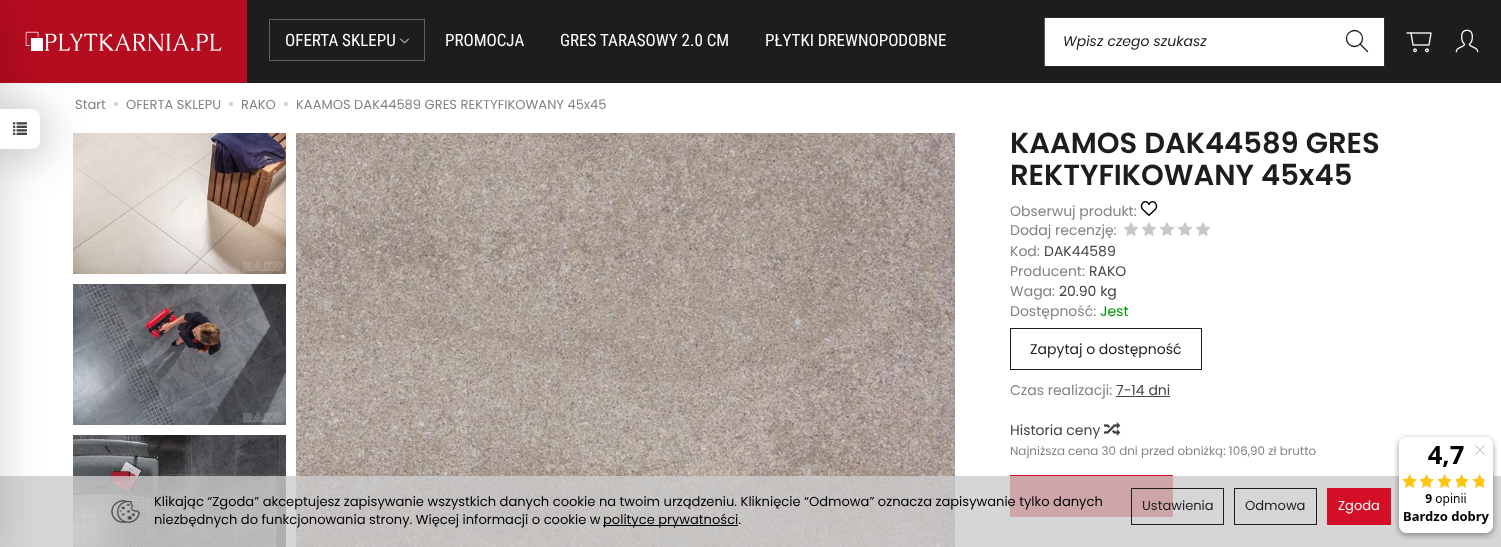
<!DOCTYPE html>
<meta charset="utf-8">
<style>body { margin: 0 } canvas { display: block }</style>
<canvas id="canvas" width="1501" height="547"></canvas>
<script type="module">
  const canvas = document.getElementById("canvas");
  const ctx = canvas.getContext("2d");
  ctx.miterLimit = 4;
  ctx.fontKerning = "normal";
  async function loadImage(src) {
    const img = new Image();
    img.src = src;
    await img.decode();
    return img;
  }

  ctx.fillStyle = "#ffffff";
  ctx.fillRect(0, 0, 1501, 547);
  ctx.fillStyle = "#b60c20";
  ctx.fillRect(0, 0, 247, 83);
  ctx.drawImage(await loadImage("img2.png"), 25, 31, 197, 21);
  ctx.drawImage(await loadImage("img6.png"), 296, 133, 659, 414);
  ctx.drawImage(await loadImage("img8.png"), 73, 435, 213, 112);
  ctx.fillStyle = "#d50f27";
  ctx.fillRect(1010, 475, 163, 42);
  ctx.fillStyle = "rgba(204, 204, 204, 0.8)";
  ctx.fillRect(0, 476, 1501, 71);
  ctx.fillStyle = "rgba(0, 0, 0, 0.17)";
  ctx.filter = "blur(22px)";
  ctx.beginPath();
  ctx.rect(-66, 4, 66, 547);
  ctx.fill();
  ctx.filter = "none";
  ctx.drawImage(await loadImage("img5.png"), 73, 133, 213, 141);
  ctx.fillStyle = "rgba(0, 0, 0, 0.35)";
  ctx.filter = "blur(22.5px)";
  ctx.beginPath();
  ctx.roundRect(0, 113, 40, 40, 8);
  ctx.fill();
  ctx.filter = "none";
  ctx.fillStyle = "#ffffff";
  ctx.beginPath();
  ctx.roundRect(0, 109, 40, 40, [0, 8, 8, 0]);
  ctx.fill();
  ctx.drawImage(await loadImage("img1.png"), 13, 122, 14, 13);
  ctx.fillStyle = "#1e1d1d";
  ctx.fillRect(247, 0, 1254, 83);
  ctx.strokeStyle = "#616161";
  ctx.strokeRect(269.5, 19.5, 155, 41);
  ctx.font = "17px Roboto Condensed";
  ctx.fillStyle = "#ffffff";
  ctx.fillText("OFERTA SKLEPU", 285, 46);
  ctx.beginPath();
  ctx.moveTo(400.5, 39);
  ctx.lineTo(404.5, 43);
  ctx.lineTo(408.5, 39);
  ctx.strokeStyle = "#ffffff";
  ctx.lineCap = "round";
  ctx.lineJoin = "round";
  ctx.stroke();
  ctx.fillText("PROMOCJA", 445, 46);
  ctx.fillText("GRES TARASOWY 2.0 CM", 560, 46);
  ctx.fillText("PŁYTKI DREWNOPODOBNE", 765, 46);
  ctx.beginPath();
  ctx.rect(1044.5, 17.5, 340, 49);
  ctx.fill();
  ctx.strokeStyle = "#2b2b2b";
  ctx.lineJoin = "miter";
  ctx.stroke();
  ctx.font = "italic 14px Poppins";
  ctx.fillStyle = "#1e1d1d";
  ctx.fillText("Wpisz czego szukasz", 1063, 46);
  ctx.beginPath();
  ctx.moveTo(1360, 44);
  ctx.lineTo(1367.5, 51.5);
  ctx.strokeStyle = "#1e1d1d";
  ctx.lineWidth = 1.3;
  ctx.lineJoin = "round";
  ctx.stroke();
  ctx.beginPath();
  ctx.arc(1354.5, 38.5, 8, 0, Math.PI * 2);
  ctx.stroke();
  ctx.drawImage(await loadImage("img3.png"), 1406, 32, 26, 21);
  ctx.drawImage(await loadImage("img4.png"), 1455, 29, 24, 24);
  ctx.font = "13.07px Poppins";
  ctx.fillStyle = "#838383";
  ctx.fillText("Start", 75, 109);
  ctx.fillStyle = "#cccccc";
  ctx.beginPath();
  ctx.arc(116, 104, 2, 0, Math.PI * 2);
  ctx.fill();
  ctx.fillStyle = "#838383";
  ctx.fillText("OFERTA SKLEPU", 126, 109);
  ctx.fillStyle = "#cccccc";
  ctx.beginPath();
  ctx.arc(231, 104, 2, 0, Math.PI * 2);
  ctx.fill();
  ctx.fillStyle = "#838383";
  ctx.fillText("RAKO", 241, 109);
  ctx.fillStyle = "#cccccc";
  ctx.beginPath();
  ctx.arc(286, 104, 2, 0, Math.PI * 2);
  ctx.fill();
  ctx.fillStyle = "#838383";
  ctx.fillText("KAAMOS DAK44589 GRES REKTYFIKOWANY 45x45", 296, 109);
  ctx.drawImage(await loadImage("img7.png"), 73, 284, 213, 141);
  ctx.font = "600 29px Poppins";
  ctx.fillStyle = "#1e1d1d";
  ctx.fillText("KAAMOS DAK44589 GRES", 1010, 153);
  ctx.fillText("REKTYFIKOWANY 45x45", 1010, 185);
  ctx.font = "14px Poppins";
  ctx.fillStyle = "#838383";
  ctx.fillText("Obserwuj produkt:", 1010, 216);
  ctx.drawImage(await loadImage("img9.png"), 1140, 201, 18, 15);
  ctx.fillText("Dodaj recenzję:", 1010, 235);
  ctx.drawImage(await loadImage("img10.png"), 1124, 222, 14, 14);
  ctx.drawImage(await loadImage("img10.png"), 1142, 222, 14, 14);
  ctx.drawImage(await loadImage("img10.png"), 1160, 222, 14, 14);
  ctx.drawImage(await loadImage("img10.png"), 1178, 222, 14, 14);
  ctx.drawImage(await loadImage("img10.png"), 1196, 222, 14, 14);
  ctx.fillText("Kod:", 1010, 256);
  ctx.fillStyle = "#434343";
  ctx.fillText("DAK44589", 1044, 256);
  ctx.fillStyle = "#838383";
  ctx.fillText("Producent:", 1010, 276);
  ctx.fillStyle = "#434343";
  ctx.fillText("RAKO", 1089, 276);
  ctx.fillStyle = "#838383";
  ctx.fillText("Waga:", 1010, 296);
  ctx.fillStyle = "#434343";
  ctx.fillText("20.90 kg", 1059, 296);
  ctx.fillStyle = "#838383";
  ctx.fillText("Dostępność:", 1010, 316);
  ctx.fillStyle = "#009600";
  ctx.fillText("Jest", 1100, 316);
  ctx.lineWidth = 1;
  ctx.lineJoin = "miter";
  ctx.strokeRect(1010.5, 328.5, 191, 41);
  ctx.fillStyle = "#1e1d1d";
  ctx.fillText("Zapytaj o dostępność", 1030, 354);
  ctx.fillStyle = "#838383";
  ctx.fillText("Czas realizacji:", 1010, 395);
  ctx.fillStyle = "#434343";
  ctx.fillText("7-14 dni", 1116, 395);
  ctx.fillRect(1116, 396, 54, 1);
  ctx.fillText("Historia ceny", 1010, 435);
  ctx.drawImage(await loadImage("img11.png"), 1104, 422, 17, 14);
  ctx.font = "11.9px Poppins";
  ctx.fillStyle = "#838383";
  ctx.fillText("Najniższa cena 30 dni przed obniżką: 106,90 zł brutto", 1010, 455);
  ctx.drawImage(await loadImage("img12.png"), 111, 500, 29, 23);
  ctx.font = "13.07px Poppins";
  ctx.fillStyle = "#000000";
  ctx.fillText("Klikając “Zgoda” akceptujesz zapisywanie wszystkich danych cookie na twoim urządzeniu. Kliknięcie “Odmowa” oznacza zapisywanie tylko danych", 154, 506);
  ctx.fillText("niezbędnych do funkcjonowania strony. Więcej informacji o cookie w", 154, 524);
  ctx.fillRect(603, 525, 135, 1);
  ctx.fillText("polityce prywatności.", 603, 524);
  ctx.strokeRect(1131.5, 488.5, 92, 36);
  ctx.fillStyle = "#1e1d1d";
  ctx.fillText("Ustawienia", 1142, 510);
  ctx.strokeRect(1234.5, 488.5, 82, 36);
  ctx.fillText("Odmowa", 1245, 510);
  ctx.fillStyle = "#d50f27";
  ctx.fillRect(1327, 488, 64, 37);
  ctx.fillStyle = "#ffffff";
  ctx.fillText("Zgoda", 1338, 510);
  ctx.drawImage(await loadImage("img13.png"), 1394, 434, 104, 106);
</script>
